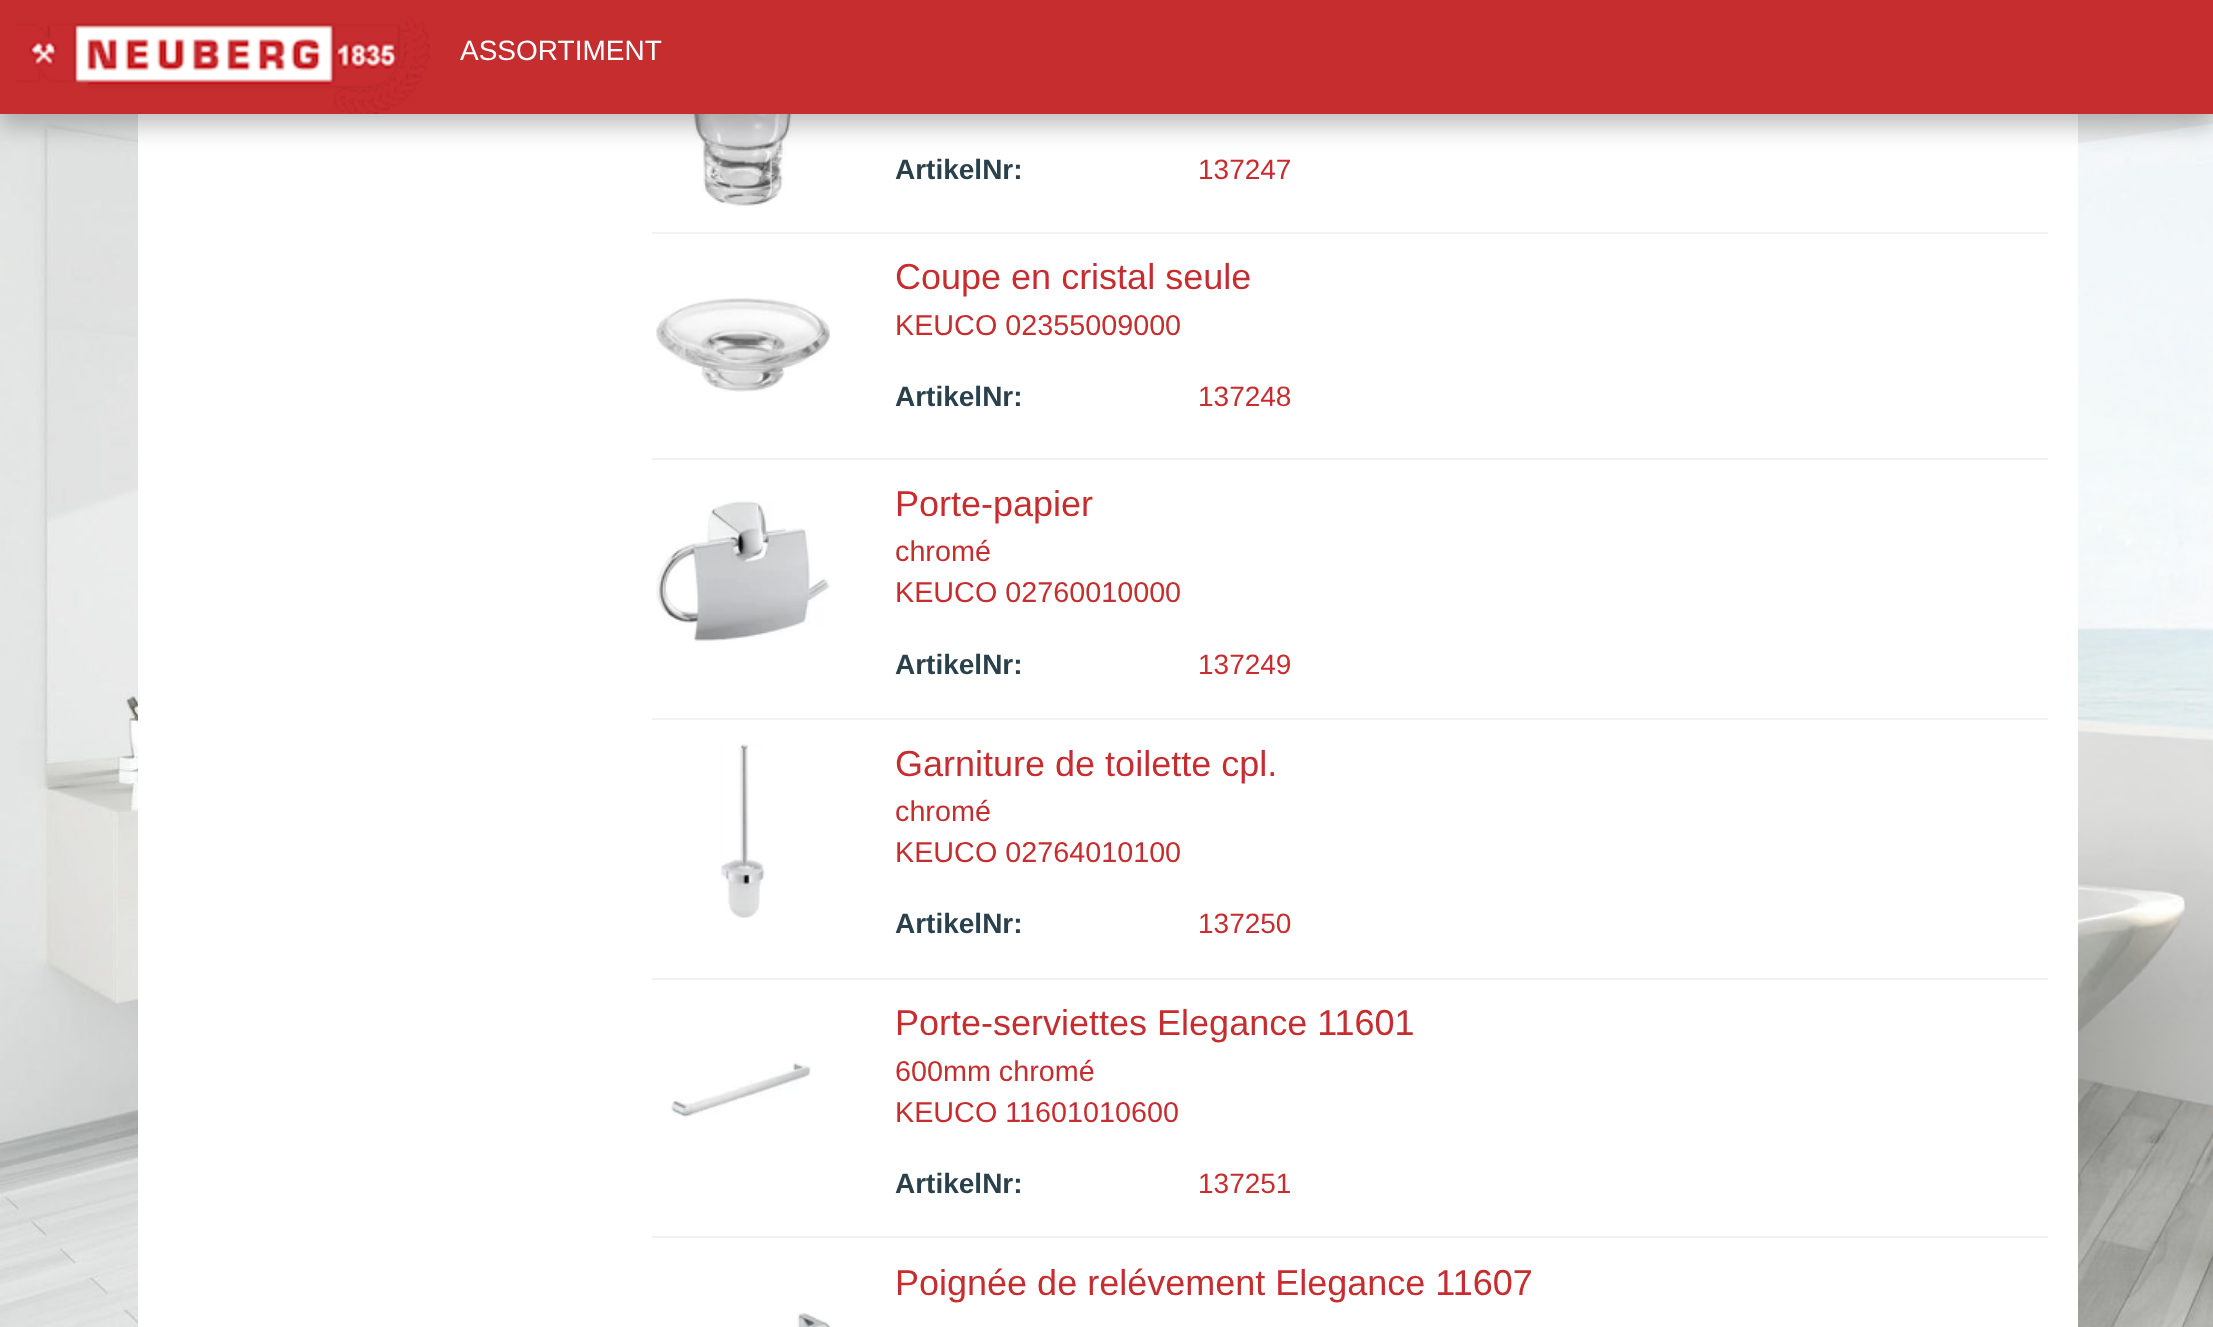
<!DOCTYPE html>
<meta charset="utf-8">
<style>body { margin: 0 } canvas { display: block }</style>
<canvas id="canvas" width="2213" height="1327"></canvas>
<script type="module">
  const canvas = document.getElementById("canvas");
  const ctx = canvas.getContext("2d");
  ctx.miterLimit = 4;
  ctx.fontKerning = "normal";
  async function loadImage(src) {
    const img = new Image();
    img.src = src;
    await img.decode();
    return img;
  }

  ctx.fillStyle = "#ffffff";
  ctx.fillRect(0, 0, 2213, 1327);
  ctx.drawImage(await loadImage("img1.png"), 0, 114, 2213, 1213);
  ctx.fillRect(138, 114, 1940, 1213);
  ctx.drawImage(await loadImage("img3.png"), 686, 114, 112, 94);
  ctx.fillStyle = "rgba(0, 0, 0, 0.25)";
  ctx.filter = "blur(12px)";
  ctx.beginPath();
  ctx.rect(0, 12, 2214, 114);
  ctx.fill();
  ctx.filter = "none";
  ctx.fillStyle = "#c62d2f";
  ctx.fillRect(0, 0, 2213, 114);
  ctx.drawImage(await loadImage("img2.png"), 16, 16, 414, 98);
  ctx.font = "28px Liberation Sans";
  ctx.fillStyle = "#ffffff";
  ctx.fillText("ASSORTIMENT", 460, 60);
  ctx.font = "bold 28px Liberation Sans";
  ctx.fillStyle = "#2a404b";
  ctx.fillText("ArtikelNr:", 895, 179);
  ctx.font = "28px Liberation Sans";
  ctx.fillStyle = "#c62d2f";
  ctx.fillText("137247", 1198, 179);
  ctx.fillStyle = "#f2f2f2";
  ctx.fillRect(652, 232, 1396, 2);
  ctx.drawImage(await loadImage("img4.png"), 656, 298, 174, 94);
  ctx.font = "36px Liberation Sans";
  ctx.fillStyle = "#c62d2f";
  ctx.fillText("Coupe en cristal seule", 895, 289);
  ctx.font = "28.75px Liberation Sans";
  ctx.fillText("KEUCO 02355009000", 895, 335);
  ctx.font = "bold 28px Liberation Sans";
  ctx.fillStyle = "#2a404b";
  ctx.fillText("ArtikelNr:", 895, 406);
  ctx.font = "28px Liberation Sans";
  ctx.fillStyle = "#c62d2f";
  ctx.fillText("137248", 1198, 406);
  ctx.fillStyle = "#f2f2f2";
  ctx.fillRect(652, 458, 1396, 2);
  ctx.drawImage(await loadImage("img5.png"), 656, 501, 174, 142);
  ctx.font = "36px Liberation Sans";
  ctx.fillStyle = "#c62d2f";
  ctx.fillText("Porte-papier", 895, 516);
  ctx.font = "28.75px Liberation Sans";
  ctx.fillText("chromé", 895, 561);
  ctx.fillText("KEUCO 02760010000", 895, 602);
  ctx.font = "bold 28px Liberation Sans";
  ctx.fillStyle = "#2a404b";
  ctx.fillText("ArtikelNr:", 895, 674);
  ctx.font = "28px Liberation Sans";
  ctx.fillStyle = "#c62d2f";
  ctx.fillText("137249", 1198, 674);
  ctx.fillStyle = "#f2f2f2";
  ctx.fillRect(652, 718, 1396, 2);
  ctx.drawImage(await loadImage("img6.png"), 720, 743, 45, 175);
  ctx.font = "36px Liberation Sans";
  ctx.fillStyle = "#c62d2f";
  ctx.fillText("Garniture de toilette cpl.", 895, 776);
  ctx.font = "28.75px Liberation Sans";
  ctx.fillText("chromé", 895, 821);
  ctx.fillText("KEUCO 02764010100", 895, 862);
  ctx.font = "bold 28px Liberation Sans";
  ctx.fillStyle = "#2a404b";
  ctx.fillText("ArtikelNr:", 895, 933);
  ctx.font = "28px Liberation Sans";
  ctx.fillStyle = "#c62d2f";
  ctx.fillText("137250", 1198, 933);
  ctx.fillStyle = "#f2f2f2";
  ctx.fillRect(652, 978, 1396, 2);
  ctx.drawImage(await loadImage("img7.png"), 671, 1061, 141, 56);
  ctx.font = "36px Liberation Sans";
  ctx.fillStyle = "#c62d2f";
  ctx.fillText("Porte-serviettes Elegance 11601", 895, 1035);
  ctx.font = "28.75px Liberation Sans";
  ctx.fillText("600mm chromé", 895, 1081);
  ctx.fillText("KEUCO 11601010600", 895, 1122);
  ctx.font = "bold 28px Liberation Sans";
  ctx.fillStyle = "#2a404b";
  ctx.fillText("ArtikelNr:", 895, 1193);
  ctx.font = "28px Liberation Sans";
  ctx.fillStyle = "#c62d2f";
  ctx.fillText("137251", 1198, 1193);
  ctx.fillStyle = "#f2f2f2";
  ctx.fillRect(652, 1236, 1396, 2);
  ctx.font = "36px Liberation Sans";
  ctx.fillStyle = "#c62d2f";
  ctx.fillText("Poignée de relévement Elegance 11607", 895, 1295);
  ctx.drawImage(await loadImage("img8.png"), 797, 1313, 35, 14);
</script>
